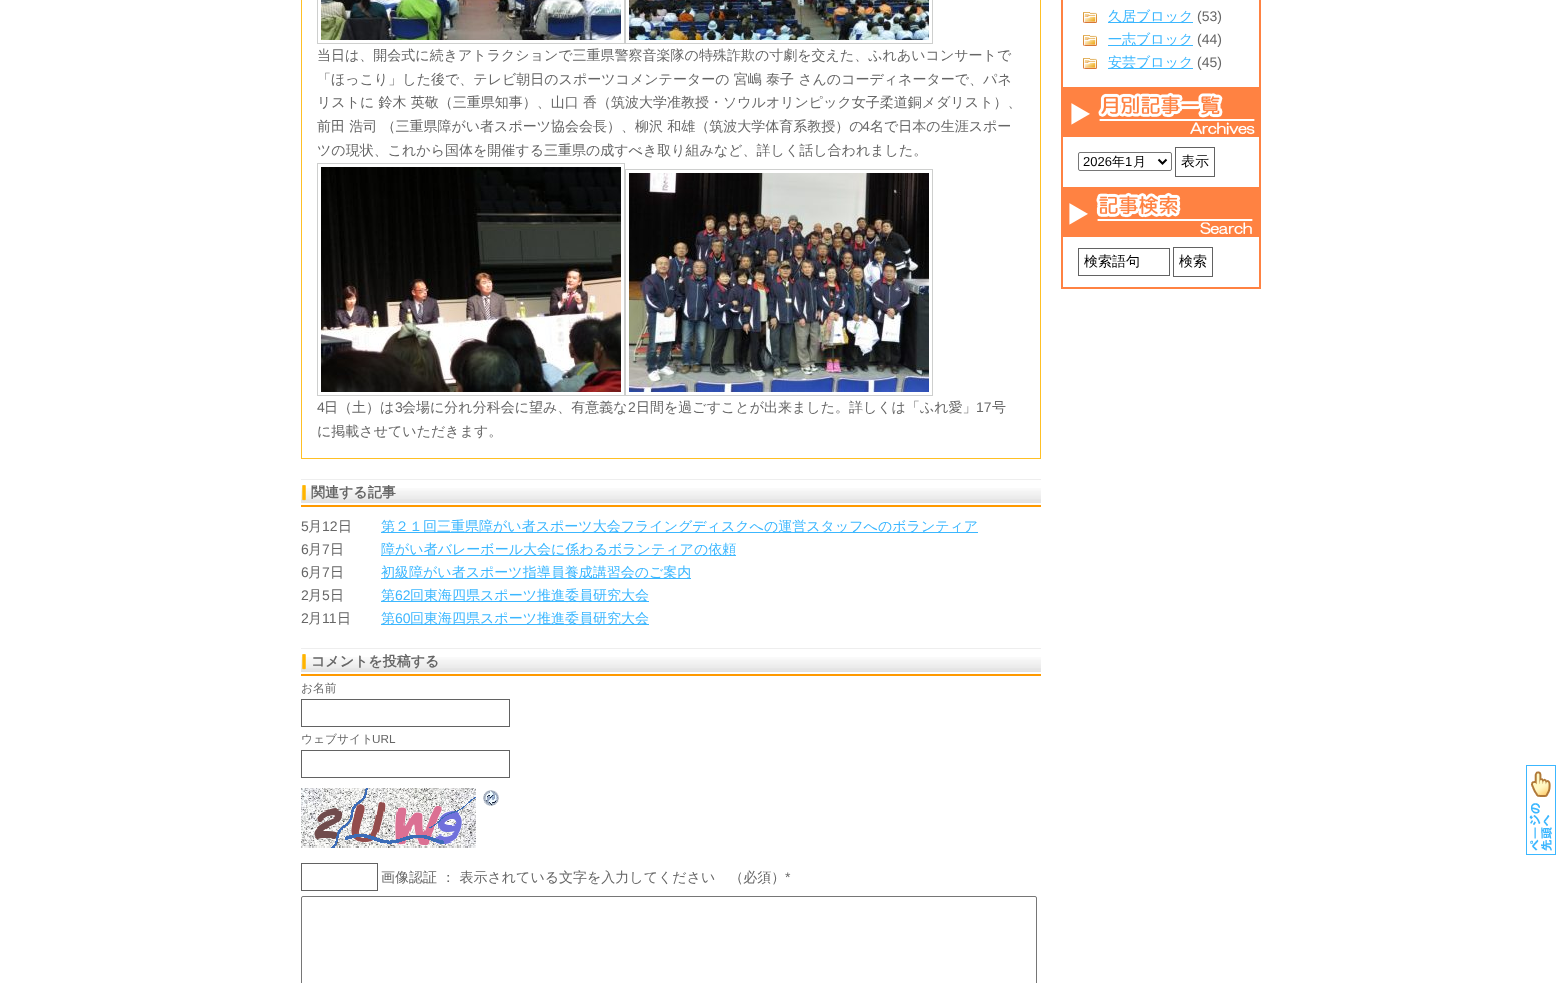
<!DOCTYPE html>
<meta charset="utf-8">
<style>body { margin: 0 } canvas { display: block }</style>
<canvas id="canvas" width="1561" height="983"></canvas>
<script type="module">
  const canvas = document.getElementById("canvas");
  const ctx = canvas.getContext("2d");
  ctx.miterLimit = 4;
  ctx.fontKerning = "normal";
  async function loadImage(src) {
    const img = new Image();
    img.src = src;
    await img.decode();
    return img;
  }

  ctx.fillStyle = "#ffffff";
  ctx.fillRect(0, 0, 1561, 983);
  ctx.fillStyle = "#ffc025";
  ctx.fillRect(1040, 0, 1, 459);
  ctx.fillRect(301, 458, 740, 1);
  ctx.fillRect(301, 0, 1, 459);
  ctx.strokeStyle = "#cecfce";
  ctx.strokeRect(317.5, -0.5, 307, 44);
  ctx.strokeRect(625.5, -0.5, 307, 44);
  ctx.drawImage(await loadImage("img1.png"), 321, 0, 300, 40);
  ctx.drawImage(await loadImage("img2.png"), 629, 0, 300, 40);
  ctx.font = "500 14px WenQuanYi Zen Hei";
  ctx.fillStyle = "#666666";
  ctx.fillText("当日は、開会式に続きアトラクションで三重県警察音楽隊の特殊詐欺の寸劇を交えた、ふれあいコンサートで", 317, 60);
  ctx.fillText("「ほっこり」した後で、テレビ朝日のスポーツコメンテーターの 宮嶋 泰子 さんのコーディネーターで、パネ", 317, 84);
  ctx.fillText("リストに 鈴木 英敬（三重県知事）、山口 香（筑波大学准教授・ソウルオリンピック女子柔道銅メダリスト）、", 317, 107);
  ctx.fillText("前田 浩司 （三重県障がい者スポーツ協会会長）、柳沢 和雄（筑波大学体育系教授）の", 317, 131);
  ctx.font = "14px Liberation Sans";
  ctx.fillText("4", 862, 131);
  ctx.font = "500 14px WenQuanYi Zen Hei";
  ctx.fillText("名で日本の生涯スポー", 870, 131);
  ctx.fillText("ツの現状、これから国体を開催する三重県の成すべき取り組みなど、詳しく話し合われました。", 317, 155);
  ctx.strokeRect(317.5, 163.5, 307, 232);
  ctx.drawImage(await loadImage("img3.png"), 321, 167, 300, 225);
  ctx.strokeRect(625.5, 169.5, 307, 226);
  ctx.drawImage(await loadImage("img4.png"), 629, 173, 300, 219);
  ctx.font = "14px Liberation Sans";
  ctx.fillText("4", 317, 412);
  ctx.font = "500 14px WenQuanYi Zen Hei";
  ctx.fillText("日（土）は", 324, 412);
  ctx.font = "14px Liberation Sans";
  ctx.fillText("3", 395, 412);
  ctx.font = "500 14px WenQuanYi Zen Hei";
  ctx.fillText("会場に分れ分科会に望み、有意義な", 402, 412);
  ctx.font = "14px Liberation Sans";
  ctx.fillText("2", 628, 412);
  ctx.font = "500 14px WenQuanYi Zen Hei";
  ctx.fillText("日間を過ごすことが出来ました。詳しくは「ふれ愛」", 636, 412);
  ctx.font = "14px Liberation Sans";
  ctx.fillText("17", 976, 412);
  ctx.font = "500 14px WenQuanYi Zen Hei";
  ctx.fillText("号", 992, 412);
  ctx.fillText("に掲載させていただきます。", 317, 436);
  ctx.drawImage(await loadImage("img5.png"), 301, 488, 740, 15);
  ctx.fillStyle = "#eeeeee";
  ctx.fillRect(301, 479, 740, 1);
  ctx.fillStyle = "#ff9a00";
  ctx.fillRect(301, 505, 740, 2);
  ctx.drawImage(await loadImage("img6.png"), 302, 485, 4, 16);
  ctx.font = "bold 14px WenQuanYi Zen Hei";
  ctx.fillStyle = "#666666";
  ctx.fillText("関連する記事", 311, 497);
  ctx.font = "14px Liberation Sans";
  ctx.fillText("5", 301, 531);
  ctx.font = "500 14px WenQuanYi Zen Hei";
  ctx.fillText("月", 308, 531);
  ctx.font = "14px Liberation Sans";
  ctx.fillText("12", 322, 531);
  ctx.font = "500 14px WenQuanYi Zen Hei";
  ctx.fillText("日", 338, 531);
  ctx.fillStyle = "#3cb7ff";
  ctx.fillRect(381, 532, 597, 1);
  ctx.fillText("第２１回三重県障がい者スポーツ大会フライングディスクへの運営スタッフへのボランティア", 381, 531);
  ctx.font = "14px Liberation Sans";
  ctx.fillStyle = "#666666";
  ctx.fillText("6", 301, 554);
  ctx.font = "500 14px WenQuanYi Zen Hei";
  ctx.fillText("月", 308, 554);
  ctx.font = "14px Liberation Sans";
  ctx.fillText("7", 322, 554);
  ctx.font = "500 14px WenQuanYi Zen Hei";
  ctx.fillText("日", 330, 554);
  ctx.fillStyle = "#3cb7ff";
  ctx.fillRect(381, 555, 355, 1);
  ctx.fillText("障がい者バレーボール大会に係わるボランティアの依頼", 381, 554);
  ctx.font = "14px Liberation Sans";
  ctx.fillStyle = "#666666";
  ctx.fillText("6", 301, 577);
  ctx.font = "500 14px WenQuanYi Zen Hei";
  ctx.fillText("月", 308, 577);
  ctx.font = "14px Liberation Sans";
  ctx.fillText("7", 322, 577);
  ctx.font = "500 14px WenQuanYi Zen Hei";
  ctx.fillText("日", 330, 577);
  ctx.fillStyle = "#3cb7ff";
  ctx.fillRect(381, 578, 310, 1);
  ctx.fillText("初級障がい者スポーツ指導員養成講習会のご案内", 381, 577);
  ctx.font = "14px Liberation Sans";
  ctx.fillStyle = "#666666";
  ctx.fillText("2", 301, 600);
  ctx.font = "500 14px WenQuanYi Zen Hei";
  ctx.fillText("月", 308, 600);
  ctx.font = "14px Liberation Sans";
  ctx.fillText("5", 322, 600);
  ctx.font = "500 14px WenQuanYi Zen Hei";
  ctx.fillText("日", 330, 600);
  ctx.fillStyle = "#3cb7ff";
  ctx.fillRect(381, 601, 268, 1);
  ctx.fillText("第", 381, 600);
  ctx.font = "14px Liberation Sans";
  ctx.fillText("62", 395, 600);
  ctx.font = "500 14px WenQuanYi Zen Hei";
  ctx.fillText("回東海四県スポーツ推進委員研究大会", 410, 600);
  ctx.font = "14px Liberation Sans";
  ctx.fillStyle = "#666666";
  ctx.fillText("2", 301, 623);
  ctx.font = "500 14px WenQuanYi Zen Hei";
  ctx.fillText("月", 308, 623);
  ctx.font = "14px Liberation Sans";
  ctx.fillText("11", 322, 623);
  ctx.font = "500 14px WenQuanYi Zen Hei";
  ctx.fillText("日", 337, 623);
  ctx.fillStyle = "#3cb7ff";
  ctx.fillRect(381, 624, 268, 1);
  ctx.fillText("第", 381, 623);
  ctx.font = "14px Liberation Sans";
  ctx.fillText("60", 395, 623);
  ctx.font = "500 14px WenQuanYi Zen Hei";
  ctx.fillText("回東海四県スポーツ推進委員研究大会", 410, 623);
  ctx.drawImage(await loadImage("img5.png"), 301, 657, 740, 15);
  ctx.fillStyle = "#eeeeee";
  ctx.fillRect(301, 648, 740, 1);
  ctx.fillStyle = "#ff9a00";
  ctx.fillRect(301, 674, 740, 2);
  ctx.drawImage(await loadImage("img6.png"), 302, 654, 4, 16);
  ctx.font = "bold 14px WenQuanYi Zen Hei";
  ctx.fillStyle = "#666666";
  ctx.fillText("コメントを投稿する", 311, 666);
  ctx.font = "500 11.75px WenQuanYi Zen Hei";
  ctx.fillText("お名前", 301, 692);
  ctx.strokeStyle = "#626262";
  ctx.strokeRect(301.5, 699.5, 208, 27);
  ctx.fillText("ウェブサイト", 301, 743);
  ctx.font = "11.75px Liberation Sans";
  ctx.fillText("URL", 372, 743);
  ctx.strokeRect(301.5, 750.5, 208, 27);
  ctx.drawImage(await loadImage("img7.png"), 301, 788, 175, 60);
  ctx.drawImage(await loadImage("img8.png"), 483, 790, 16, 16);
  ctx.strokeRect(301.5, 863.5, 76, 27);
  ctx.font = "500 14px WenQuanYi Zen Hei";
  ctx.fillText("画像認証 ： 表示されている文字を入力してください　（必須）", 381, 882);
  ctx.font = "14px Liberation Sans";
  ctx.fillText("*", 785, 882);
  ctx.beginPath();
  ctx.roundRect(301.5, 896.5, 735, 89, 1.5);
  ctx.strokeStyle = "#767676";
  ctx.stroke();
  ctx.fillStyle = "#ff8242";
  ctx.fillRect(1259, 0, 2, 187);
  ctx.fillRect(1061, 0, 2, 187);
  ctx.drawImage(await loadImage("img9.png"), 1083, 12, 14, 11);
  ctx.fillStyle = "#3cb7ff";
  ctx.fillRect(1108, 22, 85, 1);
  ctx.font = "500 14px WenQuanYi Zen Hei";
  ctx.fillText("久居ブロック", 1108, 21);
  ctx.font = "14px Liberation Sans";
  ctx.fillStyle = "#666666";
  ctx.fillText("(53)", 1197, 21);
  ctx.drawImage(await loadImage("img9.png"), 1083, 35, 14, 11);
  ctx.fillStyle = "#3cb7ff";
  ctx.fillRect(1108, 45, 85, 1);
  ctx.font = "500 14px WenQuanYi Zen Hei";
  ctx.fillText("一志ブロック", 1108, 44);
  ctx.font = "14px Liberation Sans";
  ctx.fillStyle = "#666666";
  ctx.fillText("(44)", 1197, 44);
  ctx.drawImage(await loadImage("img9.png"), 1083, 58, 14, 11);
  ctx.fillStyle = "#3cb7ff";
  ctx.fillRect(1108, 68, 85, 1);
  ctx.font = "500 14px WenQuanYi Zen Hei";
  ctx.fillText("安芸ブロック", 1108, 67);
  ctx.font = "14px Liberation Sans";
  ctx.fillStyle = "#666666";
  ctx.fillText("(45)", 1197, 67);
  ctx.drawImage(await loadImage("img10.png"), 1063, 87, 196, 50);
  ctx.beginPath();
  ctx.roundRect(1078.5, 152.5, 93, 18, 1.5);
  ctx.stroke();
  ctx.beginPath();
  ctx.moveTo(1158.5, 159.5);
  ctx.lineTo(1162.5, 163.5);
  ctx.lineTo(1166.5, 159.5);
  ctx.strokeStyle = "#000000";
  ctx.lineWidth = 2;
  ctx.stroke();
  ctx.font = "13px Liberation Sans";
  ctx.fillStyle = "#000000";
  ctx.fillText("2026", 1083, 166);
  ctx.font = "500 13px WenQuanYi Zen Hei";
  ctx.fillText("年", 1112, 166);
  ctx.font = "13px Liberation Sans";
  ctx.fillText("1", 1125, 166);
  ctx.font = "500 13px WenQuanYi Zen Hei";
  ctx.fillText("月", 1133, 166);
  ctx.strokeStyle = "#626262";
  ctx.lineWidth = 1;
  ctx.strokeRect(1175.5, 147.5, 39, 29);
  ctx.font = "500 14px WenQuanYi Zen Hei";
  ctx.fillText("表示", 1181, 166);
  ctx.drawImage(await loadImage("img11.png"), 1061, 187, 200, 50);
  ctx.fillStyle = "#ff8242";
  ctx.fillRect(1259, 237, 2, 52);
  ctx.fillRect(1061, 287, 200, 2);
  ctx.fillRect(1061, 237, 2, 52);
  ctx.strokeRect(1078.5, 248.5, 91, 27);
  ctx.fillStyle = "#000000";
  ctx.fillText("検索語句", 1084, 266);
  ctx.strokeRect(1173.5, 247.5, 39, 29);
  ctx.fillText("検索", 1179, 266);
  ctx.drawImage(await loadImage("img12.png"), 1526, 765, 30, 90);
</script>
